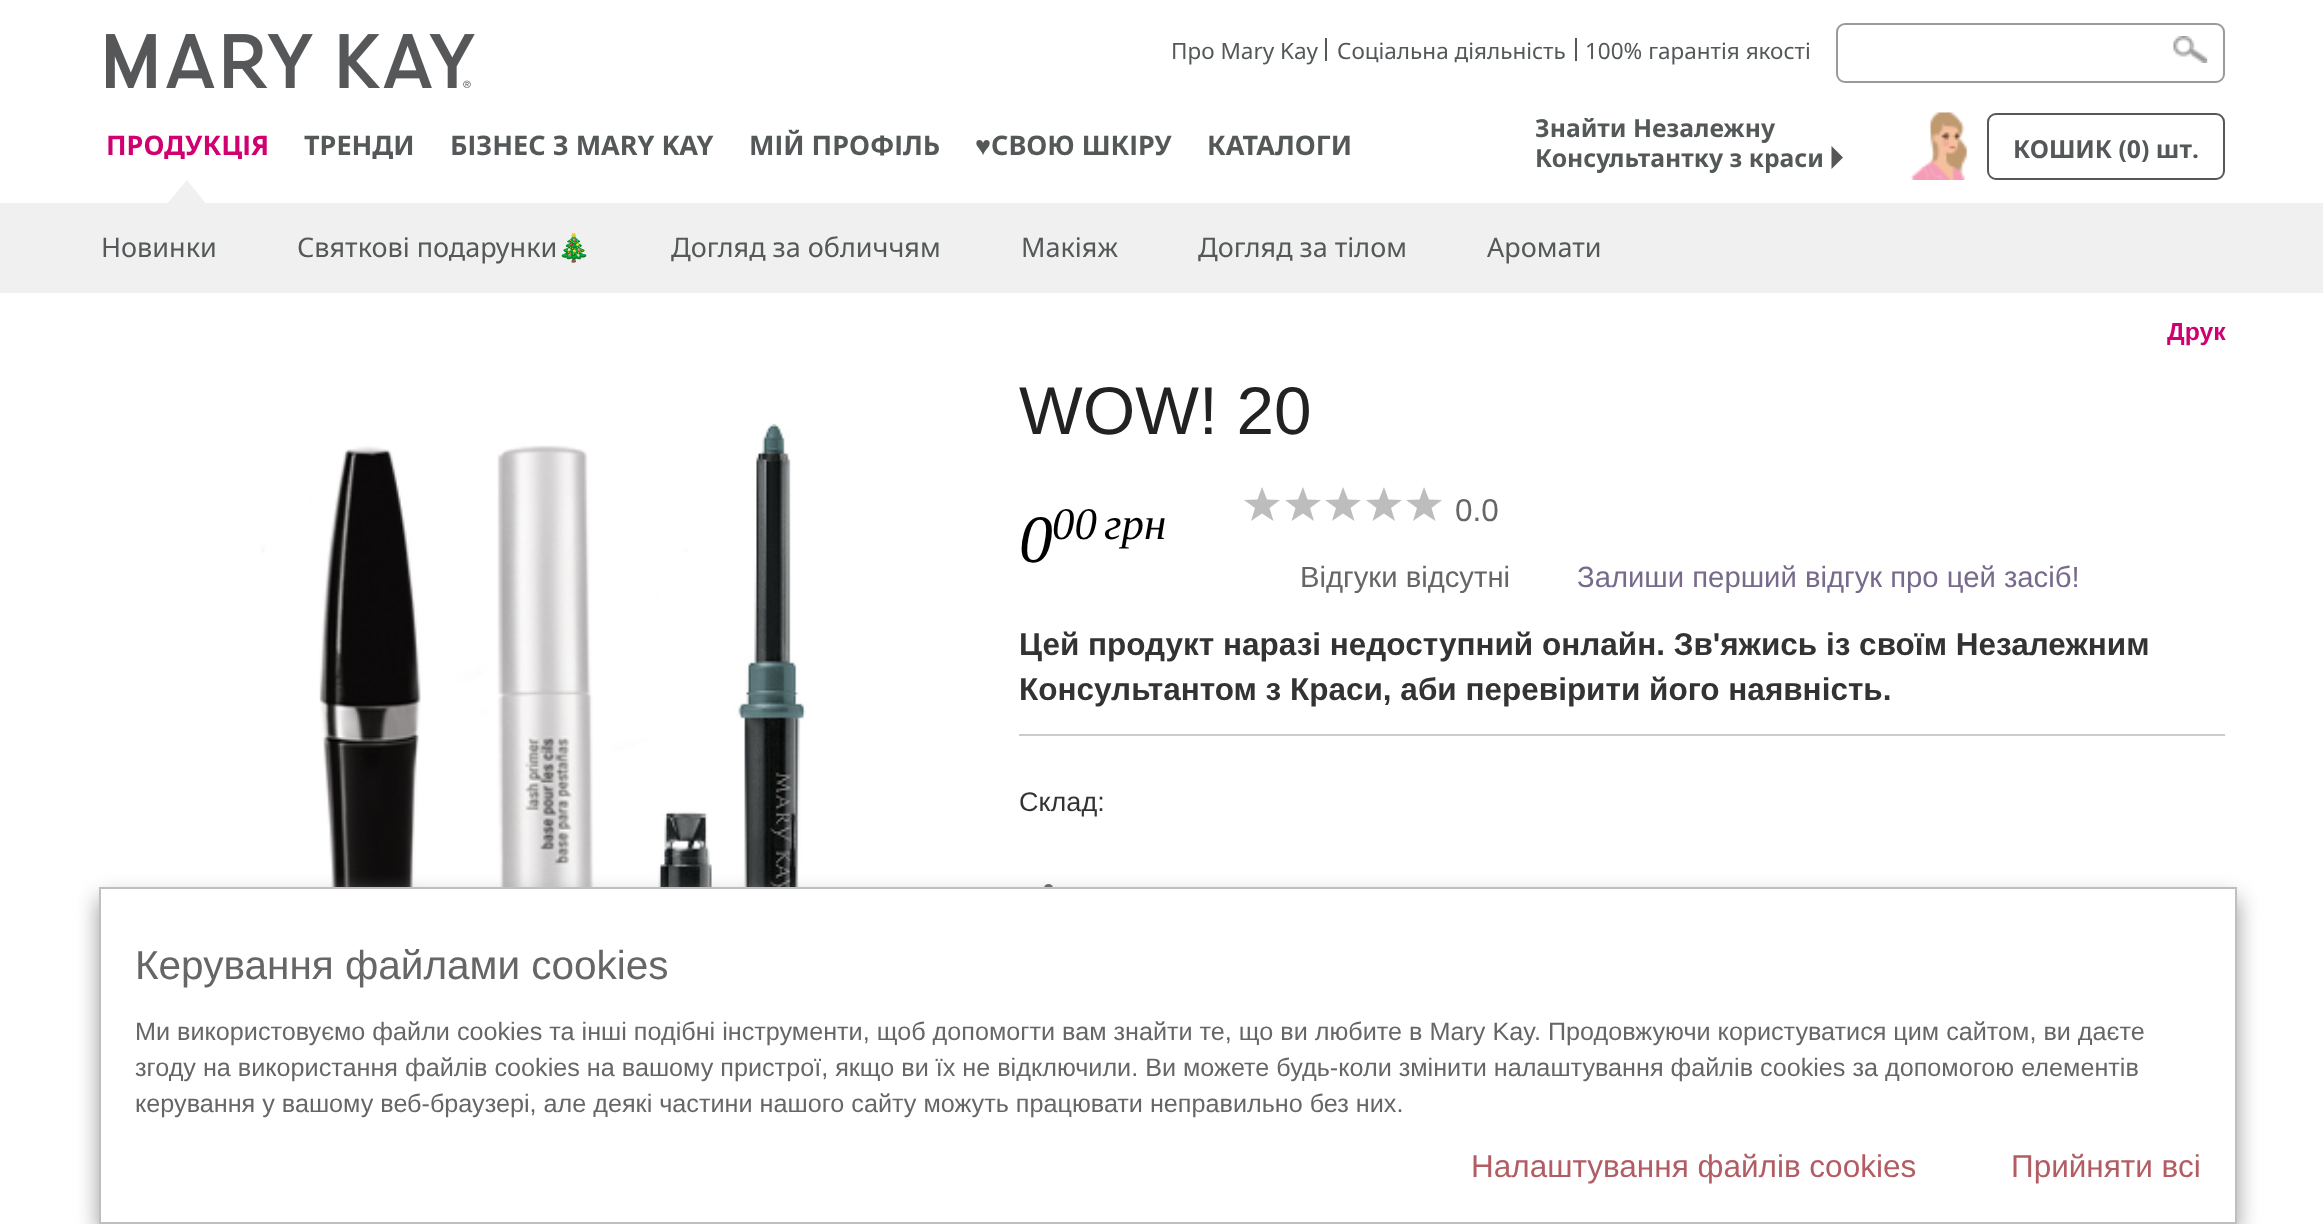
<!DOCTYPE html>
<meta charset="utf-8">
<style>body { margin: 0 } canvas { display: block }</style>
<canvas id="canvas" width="2323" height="1224"></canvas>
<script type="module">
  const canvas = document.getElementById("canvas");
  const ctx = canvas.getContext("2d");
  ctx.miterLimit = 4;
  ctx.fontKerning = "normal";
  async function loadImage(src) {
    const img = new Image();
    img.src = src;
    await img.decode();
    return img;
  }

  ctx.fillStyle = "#ffffff";
  ctx.fillRect(0, 0, 2323, 1224);
  ctx.font = "22.5px Noto Sans";
  ctx.fillStyle = "#545859";
  ctx.fillText("Про Mary Kay", 1171, 59);
  ctx.fillRect(1325, 38, 2, 23);
  ctx.fillText("Соціальна діяльність", 1337, 59);
  ctx.fillRect(1575, 38, 2, 23);
  ctx.fillText("100% гарантія якості", 1585, 59);
  ctx.drawImage(await loadImage("img1.png"), 2173, 36, 35, 27);
  ctx.fillStyle = "rgba(255, 255, 255, 0.6)";
  ctx.beginPath();
  ctx.roundRect(1837, 24, 387, 58, 8);
  ctx.fill();
  ctx.strokeStyle = "#989b9b";
  ctx.lineWidth = 2;
  ctx.stroke();
  ctx.drawImage(await loadImage("img2.png"), 106, 34, 369, 54);
  ctx.font = "bold 27px Noto Sans";
  ctx.fillStyle = "#d00070";
  ctx.fillText("ПРОДУКЦІЯ", 106, 155);
  ctx.fillStyle = "#f0f0f0";
  ctx.fillRect(0, 203, 2323, 90);
  ctx.beginPath();
  ctx.moveTo(207, 205);
  ctx.lineTo(166, 205);
  ctx.lineTo(187, 180);
  ctx.closePath();
  ctx.fill();
  ctx.fillStyle = "#545859";
  ctx.fillText("ТРЕНДИ", 304, 155);
  ctx.fillText("БІЗНЕС З MARY KAY", 450, 155);
  ctx.fillText("МІЙ ПРОФІЛЬ", 749, 155);
  ctx.font = "bold 27px Liberation Sans";
  ctx.fillText("♥", 975, 155);
  ctx.font = "bold 27px Noto Sans";
  ctx.fillText("СВОЮ ШКІРУ", 991, 155);
  ctx.fillText("КАТАЛОГИ", 1207, 155);
  ctx.font = "bold 24.75px Noto Sans";
  ctx.fillText("Знайти Незалежну", 1535, 137);
  ctx.fillText("Консультантку з краси", 1535, 167);
  ctx.fillStyle = "#555759";
  ctx.beginPath();
  ctx.moveTo(1831.5, 169);
  ctx.lineTo(1831.5, 146);
  ctx.lineTo(1843, 157.5);
  ctx.closePath();
  ctx.fill();
  ctx.drawImage(await loadImage("img3.png"), 1910, 112, 58, 68);
  ctx.beginPath();
  ctx.roundRect(1988, 114, 236, 65, 8);
  ctx.strokeStyle = "#545859";
  ctx.stroke();
  ctx.fillStyle = "#545859";
  ctx.fillText("КОШИК (0) шт.", 2013, 158);
  ctx.font = "27px Noto Sans";
  ctx.fillText("Новинки", 101, 257);
  ctx.fillText("Святкові подарунки", 297, 257);
  ctx.font = "27px Noto Color Emoji";
  ctx.fillText("🎄", 557, 257);
  ctx.font = "27px Noto Sans";
  ctx.fillText("Догляд за обличчям", 671, 257);
  ctx.fillText("Макiяж", 1021, 257);
  ctx.fillText("Догляд за тілом", 1198, 257);
  ctx.fillText("Аромати", 1487, 257);
  ctx.font = "bold 24.75px Liberation Sans";
  ctx.fillStyle = "#d00070";
  ctx.fillText("Друк", 2167, 340);
  ctx.drawImage(await loadImage("img4.png"), 260, 423, 546, 464);
  ctx.fillStyle = "#cccccc";
  ctx.fillRect(1019, 734, 1206, 2);
  ctx.font = "67.5px Liberation Sans";
  ctx.fillStyle = "#222222";
  ctx.fillText("WOW! 20", 1019, 434);
  ctx.font = "italic 67.5px Liberation Serif";
  ctx.fillStyle = "#000000";
  ctx.fillText("0", 1019, 562);
  ctx.font = "italic 45px Liberation Serif";
  ctx.fillText("00", 1052, 539);
  ctx.fillText("грн", 1104, 539);
  ctx.fillStyle = "#bebdbd";
  ctx.beginPath();
  ctx.moveTo(1269.5, 508);
  ctx.lineTo(1273.5, 521);
  ctx.lineTo(1262, 513.5);
  ctx.lineTo(1251, 521);
  ctx.lineTo(1255, 508);
  ctx.lineTo(1244, 500);
  ctx.lineTo(1257.5, 499.5);
  ctx.lineTo(1262, 487);
  ctx.lineTo(1267, 499.5);
  ctx.lineTo(1280, 500);
  ctx.closePath();
  ctx.fill();
  ctx.beginPath();
  ctx.moveTo(1310, 508);
  ctx.lineTo(1314, 521);
  ctx.lineTo(1303, 513.5);
  ctx.lineTo(1291.5, 521);
  ctx.lineTo(1295.5, 508);
  ctx.lineTo(1285, 500);
  ctx.lineTo(1298, 499.5);
  ctx.lineTo(1303, 487);
  ctx.lineTo(1307.5, 499.5);
  ctx.lineTo(1321, 500);
  ctx.closePath();
  ctx.fill();
  ctx.beginPath();
  ctx.moveTo(1350.5, 508);
  ctx.lineTo(1354.5, 521);
  ctx.lineTo(1343, 513.5);
  ctx.lineTo(1332, 521);
  ctx.lineTo(1336, 508);
  ctx.lineTo(1325, 500);
  ctx.lineTo(1338.5, 499.5);
  ctx.lineTo(1343, 487);
  ctx.lineTo(1348, 499.5);
  ctx.lineTo(1361, 500);
  ctx.closePath();
  ctx.fill();
  ctx.beginPath();
  ctx.moveTo(1391, 508);
  ctx.lineTo(1395, 521);
  ctx.lineTo(1384, 513.5);
  ctx.lineTo(1372.5, 521);
  ctx.lineTo(1376.5, 508);
  ctx.lineTo(1366, 500);
  ctx.lineTo(1379, 499.5);
  ctx.lineTo(1384, 487);
  ctx.lineTo(1388.5, 499.5);
  ctx.lineTo(1402, 500);
  ctx.closePath();
  ctx.fill();
  ctx.beginPath();
  ctx.moveTo(1431.5, 508);
  ctx.lineTo(1435.5, 521);
  ctx.lineTo(1424, 513.5);
  ctx.lineTo(1413, 521);
  ctx.lineTo(1417, 508);
  ctx.lineTo(1406, 500);
  ctx.lineTo(1419.5, 499.5);
  ctx.lineTo(1424, 487);
  ctx.lineTo(1429, 499.5);
  ctx.lineTo(1442, 500);
  ctx.closePath();
  ctx.fill();
  ctx.font = "31.5px Liberation Sans";
  ctx.fillStyle = "#666666";
  ctx.fillText("0.0", 1455, 521);
  ctx.font = "29.25px Liberation Sans";
  ctx.fillText("Відгуки відсутні", 1300, 587);
  ctx.fillStyle = "#776a8d";
  ctx.fillText("Залиши перший відгук про цей засіб!", 1577, 587);
  ctx.font = "bold 31.5px Liberation Sans";
  ctx.fillStyle = "#333333";
  ctx.fillText("Цей продукт наразі недоступний онлайн. Зв'яжись із своїм Незалежним", 1019, 655);
  ctx.fillText("Консультантом з Краси, аби перевірити його наявність.", 1019, 700);
  ctx.font = "27px Liberation Sans";
  ctx.fillText("Склад:", 1019, 811);
  ctx.fillStyle = "#666666";
  ctx.beginPath();
  ctx.arc(1048.5, 888.5, 4.5, 0, Math.PI * 2);
  ctx.fill();
  ctx.fillStyle = "#999999";
  ctx.filter = "blur(11px)";
  ctx.beginPath();
  ctx.rect(99, 898, 2138, 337);
  ctx.fill();
  ctx.filter = "none";
  ctx.fillStyle = "#ffffff";
  ctx.beginPath();
  ctx.rect(100, 888, 2136, 335);
  ctx.fill();
  ctx.strokeStyle = "#bfbfbf";
  ctx.stroke();
  ctx.font = "40.5px Liberation Sans";
  ctx.fillStyle = "#666666";
  ctx.fillText("Керування файлами cookies", 135, 979);
  ctx.font = "25.2px Liberation Sans";
  ctx.fillText("Ми використовуємо файли cookies та інші подібні інструменти, щоб допомогти вам знайти те, що ви любите в Mary Kay. Продовжуючи користуватися цим сайтом, ви даєте", 135, 1040);
  ctx.fillText("згоду на використання файлів cookies на вашому пристрої, якщо ви їх не відключили. Ви можете будь-коли змінити налаштування файлів cookies за допомогою елементів", 135, 1076);
  ctx.fillText("керування у вашому веб-браузері, але деякі частини нашого сайту можуть працювати неправильно без них.", 135, 1112);
  ctx.font = "31.5px Liberation Sans";
  ctx.fillStyle = "#b25d64";
  ctx.fillText("Налаштування файлів cookies", 1471, 1177);
  ctx.fillText("Прийняти всі", 2011, 1177);
</script>
